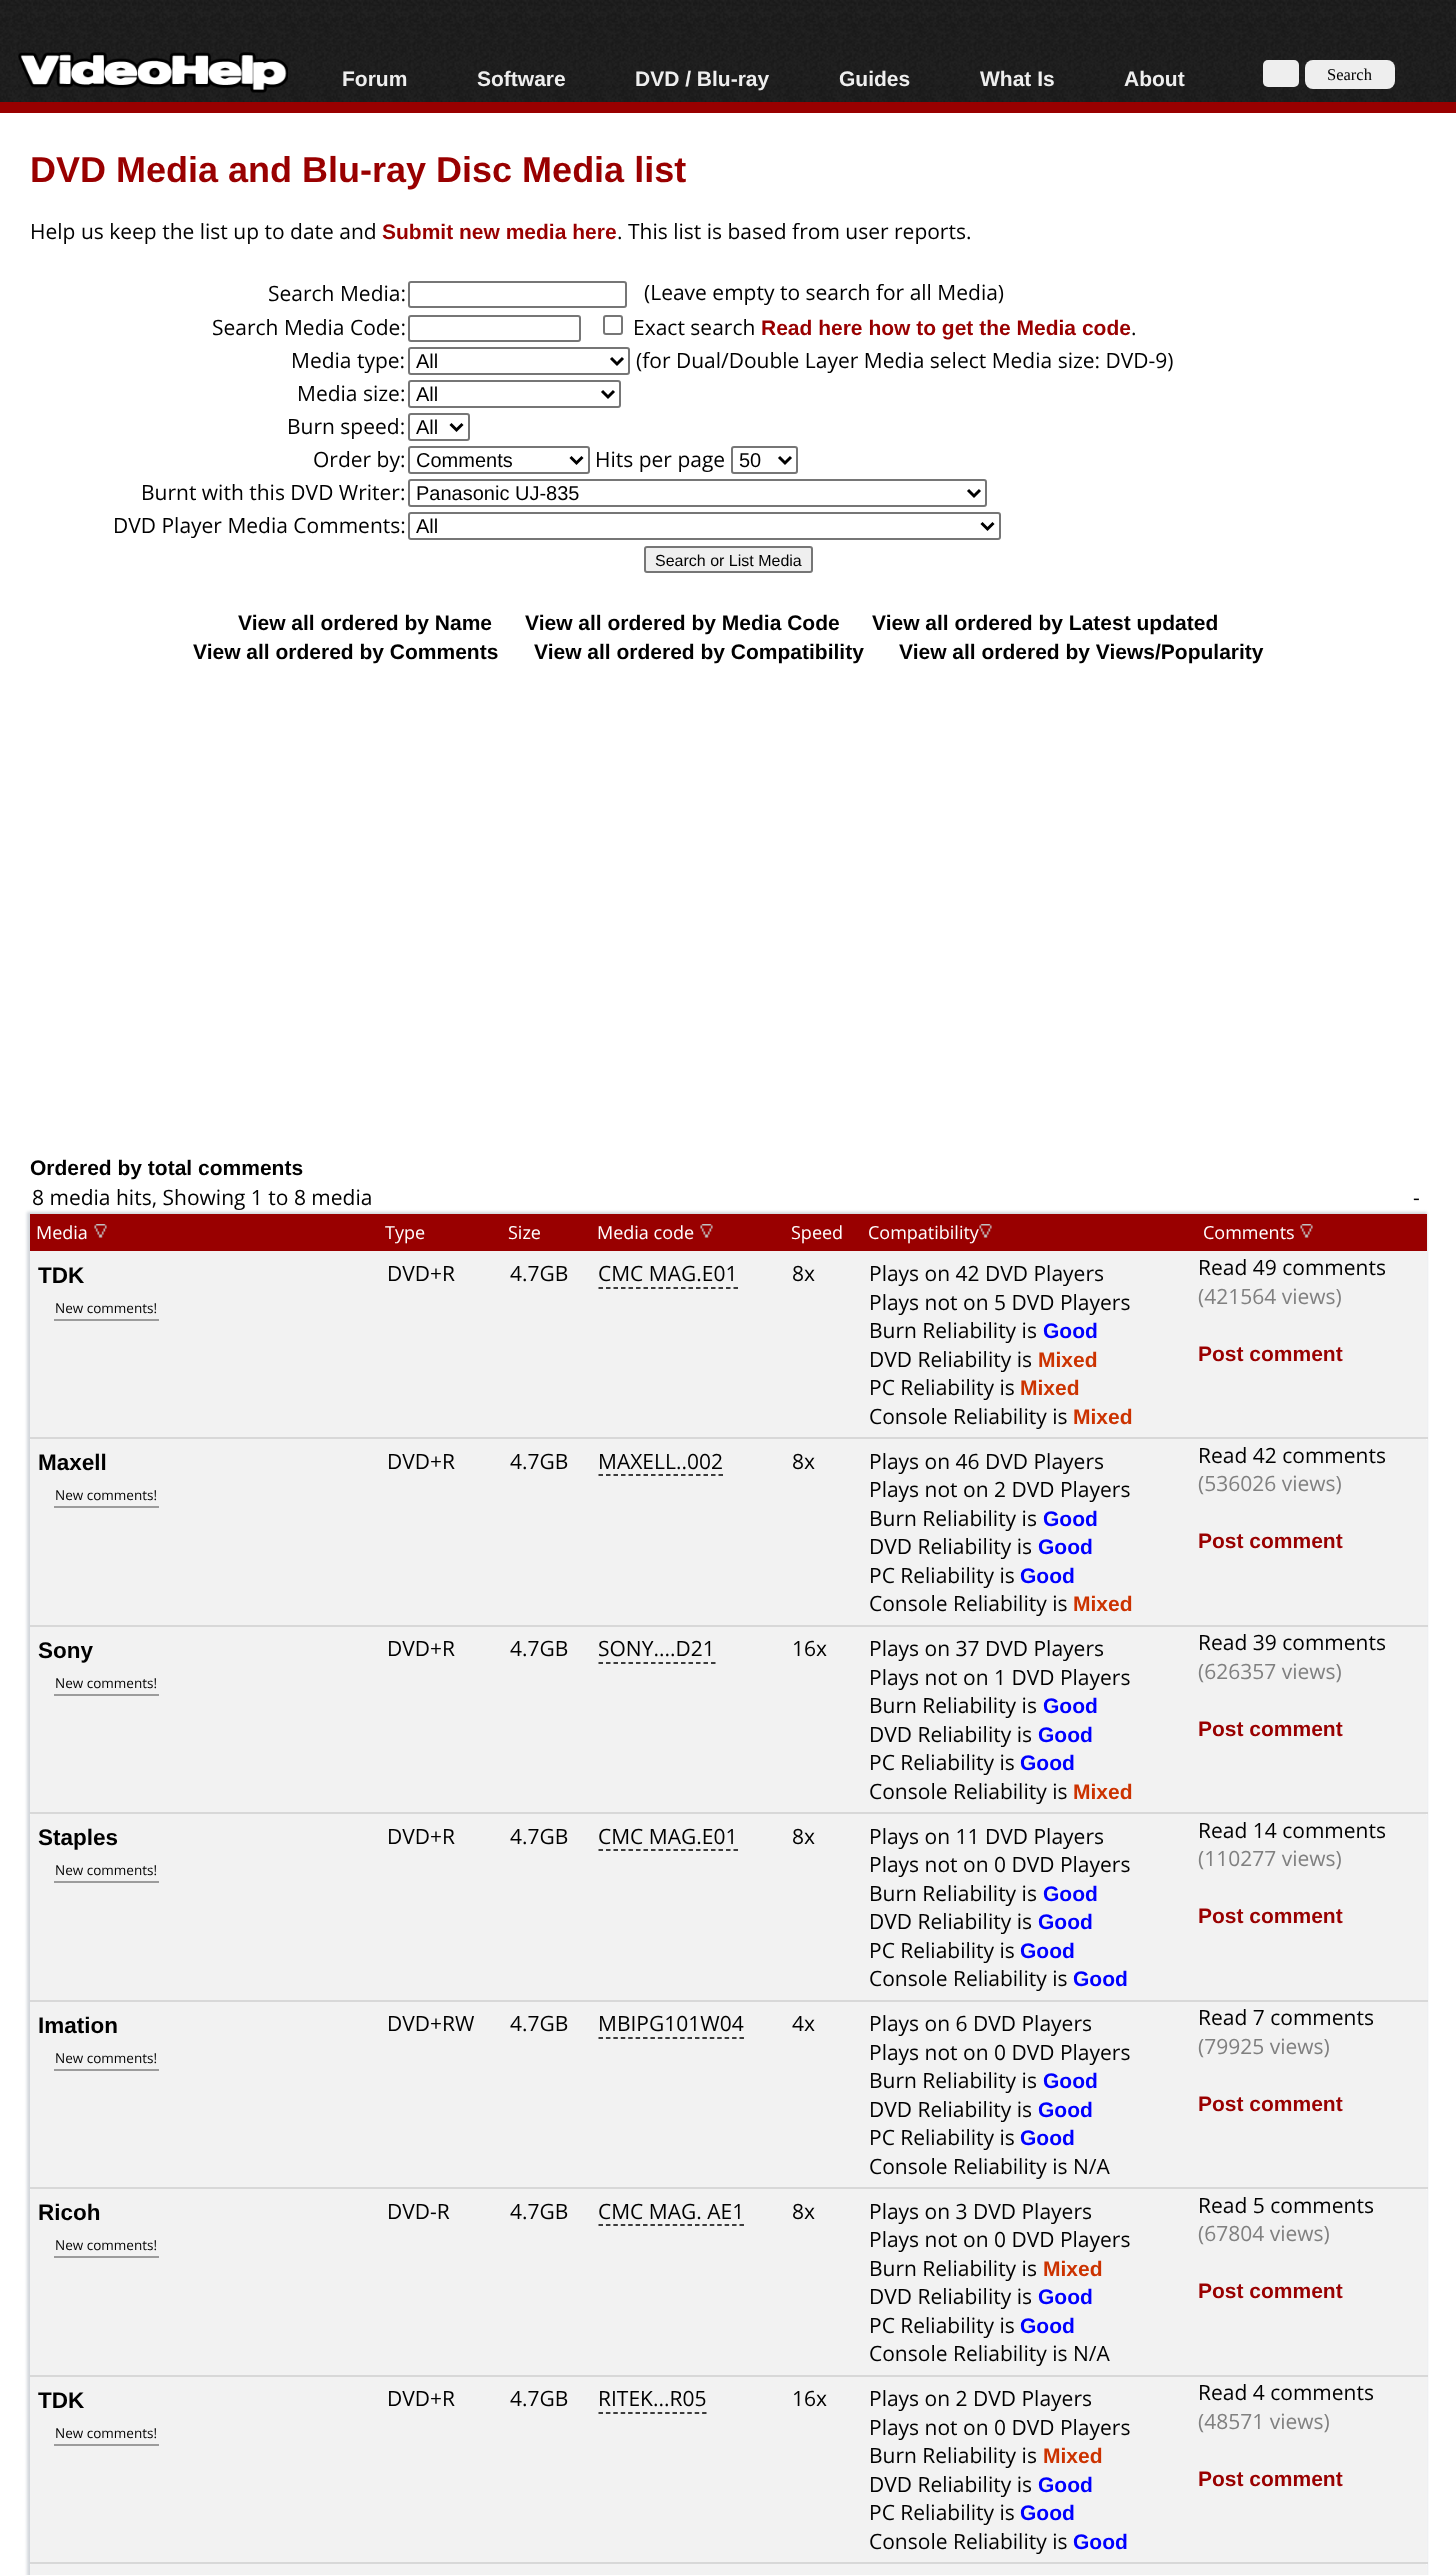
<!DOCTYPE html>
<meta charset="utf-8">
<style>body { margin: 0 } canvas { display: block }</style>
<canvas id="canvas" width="1456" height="2575"></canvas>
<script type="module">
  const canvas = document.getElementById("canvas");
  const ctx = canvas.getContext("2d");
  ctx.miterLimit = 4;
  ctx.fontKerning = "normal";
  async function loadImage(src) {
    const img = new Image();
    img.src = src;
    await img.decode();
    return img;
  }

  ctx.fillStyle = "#222222";
  ctx.fillRect(0, 0, 1456, 2575);
  ctx.drawImage(await loadImage("img1.png"), 0, 0, 1456, 102);
  ctx.fillStyle = "#990000";
  ctx.fillRect(0, 102, 1456, 11);
  ctx.drawImage(await loadImage("img2.png"), 18, 52, 270, 41);
  ctx.font = "bold 21px Liberation Sans";
  ctx.fillStyle = "#eeeeee";
  ctx.fillText("Forum", 342, 86);
  ctx.fillText("Software", 477, 86);
  ctx.fillText("DVD / Blu-ray", 635, 86);
  ctx.fillText("Guides", 839, 86);
  ctx.fillText("What Is", 980, 86);
  ctx.fillText("About", 1124, 86);
  ctx.beginPath();
  ctx.roundRect(1263, 60, 36, 27, 5);
  ctx.fill();
  ctx.beginPath();
  ctx.roundRect(1305, 60, 90, 29, 8);
  ctx.fill();
  ctx.font = "16.5px Liberation Serif";
  ctx.fillStyle = "#000000";
  ctx.fillText("Search", 1327, 80);
  ctx.fillStyle = "#ffffff";
  ctx.fillRect(0, 113, 1456, 2462);
  ctx.font = "bold 36px Liberation Sans";
  ctx.fillStyle = "#990000";
  ctx.fillText("DVD Media and Blu-ray Disc Media list", 30, 182);
  ctx.font = "21px Open Sans";
  ctx.fillStyle = "#000000";
  ctx.fillText("Help us keep the list up to date and", 30, 239);
  ctx.font = "bold 21px Liberation Sans";
  ctx.fillStyle = "#990000";
  ctx.fillText("Submit new media here", 382, 239);
  ctx.font = "21px Open Sans";
  ctx.fillStyle = "#000000";
  ctx.fillText(". This list is based from user reports.", 617, 239);
  ctx.fillText("Search Media:", 268, 301);
  ctx.beginPath();
  ctx.roundRect(409, 282, 217, 25, 2);
  ctx.strokeStyle = "#767676";
  ctx.lineWidth = 2;
  ctx.stroke();
  ctx.fillText("(Leave empty to search for all Media)", 644, 300);
  ctx.fillText("Search Media Code:", 212, 335);
  ctx.beginPath();
  ctx.roundRect(409, 316, 171, 25, 2);
  ctx.stroke();
  ctx.beginPath();
  ctx.roundRect(604, 316, 18, 18, 2);
  ctx.stroke();
  ctx.fillText("Exact search", 633, 335);
  ctx.font = "bold 21px Liberation Sans";
  ctx.fillStyle = "#990000";
  ctx.fillText("Read here how to get the Media code", 761, 335);
  ctx.font = "21px Open Sans";
  ctx.fillStyle = "#000000";
  ctx.fillText(".", 1131, 335);
  ctx.fillText("Media type:", 291, 368);
  ctx.beginPath();
  ctx.roundRect(409, 348, 220, 26, 2);
  ctx.stroke();
  ctx.beginPath();
  ctx.moveTo(611, 358);
  ctx.lineTo(617, 364);
  ctx.lineTo(623, 358);
  ctx.strokeStyle = "#000000";
  ctx.lineWidth = 3;
  ctx.stroke();
  ctx.font = "20px Liberation Sans";
  ctx.fillText("All", 416, 368);
  ctx.font = "21px Open Sans";
  ctx.fillText("(for Dual/Double Layer Media select Media size: DVD-9)", 636, 368);
  ctx.fillText("Media size:", 297, 401);
  ctx.beginPath();
  ctx.roundRect(409, 381, 211, 26, 2);
  ctx.strokeStyle = "#767676";
  ctx.lineWidth = 2;
  ctx.stroke();
  ctx.beginPath();
  ctx.moveTo(602, 391);
  ctx.lineTo(608, 397);
  ctx.lineTo(614, 391);
  ctx.strokeStyle = "#000000";
  ctx.lineWidth = 3;
  ctx.stroke();
  ctx.font = "20px Liberation Sans";
  ctx.fillText("All", 416, 401);
  ctx.font = "21px Open Sans";
  ctx.fillText("Burn speed:", 287, 434);
  ctx.beginPath();
  ctx.roundRect(409, 414, 60, 26, 2);
  ctx.strokeStyle = "#767676";
  ctx.lineWidth = 2;
  ctx.stroke();
  ctx.beginPath();
  ctx.moveTo(450.5, 424);
  ctx.lineTo(456.5, 430);
  ctx.lineTo(462.5, 424);
  ctx.strokeStyle = "#000000";
  ctx.lineWidth = 3;
  ctx.stroke();
  ctx.font = "20px Liberation Sans";
  ctx.fillText("All", 416, 434);
  ctx.font = "21px Open Sans";
  ctx.fillText("Order by:", 313, 467);
  ctx.beginPath();
  ctx.roundRect(409, 447, 180, 26, 2);
  ctx.strokeStyle = "#767676";
  ctx.lineWidth = 2;
  ctx.stroke();
  ctx.beginPath();
  ctx.moveTo(570.5, 457);
  ctx.lineTo(576.5, 463);
  ctx.lineTo(582.5, 457);
  ctx.strokeStyle = "#000000";
  ctx.lineWidth = 3;
  ctx.stroke();
  ctx.font = "20px Liberation Sans";
  ctx.fillText("Comments", 416, 467);
  ctx.font = "21px Open Sans";
  ctx.fillText("Hits per page", 595, 467);
  ctx.beginPath();
  ctx.roundRect(732, 447, 65, 26, 2);
  ctx.strokeStyle = "#767676";
  ctx.lineWidth = 2;
  ctx.stroke();
  ctx.beginPath();
  ctx.moveTo(779, 457);
  ctx.lineTo(785, 463);
  ctx.lineTo(791, 457);
  ctx.strokeStyle = "#000000";
  ctx.lineWidth = 3;
  ctx.stroke();
  ctx.font = "20px Liberation Sans";
  ctx.fillText("50", 739, 467);
  ctx.font = "21px Open Sans";
  ctx.fillText("Burnt with this DVD Writer:", 141, 500);
  ctx.beginPath();
  ctx.roundRect(409, 480, 577, 26, 2);
  ctx.strokeStyle = "#767676";
  ctx.lineWidth = 2;
  ctx.stroke();
  ctx.beginPath();
  ctx.moveTo(968, 490);
  ctx.lineTo(974, 496);
  ctx.lineTo(980, 490);
  ctx.strokeStyle = "#000000";
  ctx.lineWidth = 3;
  ctx.stroke();
  ctx.font = "20px Liberation Sans";
  ctx.fillText("Panasonic UJ-835", 416, 500);
  ctx.font = "21px Open Sans";
  ctx.fillText("DVD Player Media Comments:", 113, 533);
  ctx.beginPath();
  ctx.roundRect(409, 513, 591, 26, 2);
  ctx.strokeStyle = "#767676";
  ctx.lineWidth = 2;
  ctx.stroke();
  ctx.beginPath();
  ctx.moveTo(981.5, 523);
  ctx.lineTo(987.5, 529);
  ctx.lineTo(993.5, 523);
  ctx.strokeStyle = "#000000";
  ctx.lineWidth = 3;
  ctx.stroke();
  ctx.font = "20px Liberation Sans";
  ctx.fillText("All", 416, 533);
  ctx.fillStyle = "#efefef";
  ctx.beginPath();
  ctx.roundRect(645, 547, 167, 25, 2);
  ctx.fill();
  ctx.strokeStyle = "#767676";
  ctx.lineWidth = 2;
  ctx.stroke();
  ctx.font = "16px Liberation Sans";
  ctx.fillStyle = "#000000";
  ctx.fillText("Search or List Media", 655, 566);
  ctx.font = "bold 21px Liberation Sans";
  ctx.fillText("View all ordered by Name", 238, 630);
  ctx.fillText("View all ordered by Media Code", 525, 630);
  ctx.fillText("View all ordered by Latest updated", 872, 630);
  ctx.fillText("View all ordered by Comments", 193, 659);
  ctx.fillText("View all ordered by Compatibility", 534, 659);
  ctx.fillText("View all ordered by Views/Popularity", 899, 659);
  ctx.fillText("Ordered by total comments", 30, 1175);
  ctx.fillStyle = "rgba(203, 208, 214, 0.87)";
  ctx.filter = "blur(1.5px)";
  ctx.beginPath();
  ctx.rect(27, 1212, 1400, 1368);
  ctx.fill();
  ctx.filter = "none";
  ctx.font = "21px Open Sans";
  ctx.fillStyle = "#000000";
  ctx.fillText("8 media hits, Showing 1 to 8 media", 32, 1205);
  ctx.fillText("-", 1413, 1205);
  ctx.fillStyle = "#ffffff";
  ctx.fillRect(30, 1251, 1397, 1315);
  ctx.fillStyle = "#990000";
  ctx.fillRect(30, 1214, 1397, 37);
  ctx.font = "18px Open Sans";
  ctx.fillStyle = "#ffffff";
  ctx.fillText("Media", 36, 1239);
  ctx.drawImage(await loadImage("img3.png"), 94, 1224, 13, 14);
  ctx.fillText("Type", 385, 1239);
  ctx.fillText("Size", 508, 1239);
  ctx.fillText("Media code", 597, 1239);
  ctx.drawImage(await loadImage("img3.png"), 700, 1224, 13, 14);
  ctx.fillText("Speed", 791, 1239);
  ctx.fillText("Compatibility", 868, 1239);
  ctx.drawImage(await loadImage("img3.png"), 979, 1224, 13, 14);
  ctx.fillText("Comments", 1203, 1239);
  ctx.drawImage(await loadImage("img3.png"), 1300, 1224, 13, 14);
  ctx.fillStyle = "#f2f2f2";
  ctx.beginPath();
  ctx.roundRect(30, 1251, 1397, 188, 1.5);
  ctx.fill();
  ctx.beginPath();
  ctx.roundRect(30, 1251, 350, 188, 1.5);
  ctx.fill();
  ctx.fillStyle = "#d8d8d8";
  ctx.fillRect(30, 1437, 1398, 2);
  ctx.font = "bold 22.5px Liberation Sans";
  ctx.fillStyle = "#000000";
  ctx.fillText("TDK", 38, 1283);
  ctx.font = "13.5px Open Sans";
  ctx.fillText("New comments!", 55, 1313);
  ctx.fillStyle = "#9c9c9c";
  ctx.fillRect(54, 1319, 105, 2);
  ctx.font = "21px Open Sans";
  ctx.fillStyle = "#000000";
  ctx.fillText("DVD+R", 387, 1281);
  ctx.fillText("4.7GB", 510, 1281);
  ctx.fillText("CMC MAG.E01", 598, 1281);
  ctx.beginPath();
  ctx.moveTo(598.5, 1288);
  ctx.lineTo(738, 1288);
  ctx.strokeStyle = "#000000";
  ctx.lineWidth = 1.5;
  ctx.setLineDash([4.5, 3]);
  ctx.stroke();
  ctx.fillText("8x", 792, 1281);
  ctx.fillText("Plays on 42 DVD Players", 869, 1281);
  ctx.fillText("Plays not on 5 DVD Players", 869, 1310);
  ctx.fillText("Burn Reliability is", 869, 1338);
  ctx.font = "bold 21px Liberation Sans";
  ctx.fillStyle = "#0000ff";
  ctx.fillText("Good", 1043, 1338);
  ctx.font = "21px Open Sans";
  ctx.fillStyle = "#000000";
  ctx.fillText("DVD Reliability is", 869, 1367);
  ctx.font = "bold 21px Liberation Sans";
  ctx.fillStyle = "#cc3300";
  ctx.fillText("Mixed", 1038, 1367);
  ctx.font = "21px Open Sans";
  ctx.fillStyle = "#000000";
  ctx.fillText("PC Reliability is", 869, 1395);
  ctx.font = "bold 21px Liberation Sans";
  ctx.fillStyle = "#cc3300";
  ctx.fillText("Mixed", 1020, 1395);
  ctx.font = "21px Open Sans";
  ctx.fillStyle = "#000000";
  ctx.fillText("Console Reliability is", 869, 1424);
  ctx.font = "bold 21px Liberation Sans";
  ctx.fillStyle = "#cc3300";
  ctx.fillText("Mixed", 1073, 1424);
  ctx.font = "21px Open Sans";
  ctx.fillStyle = "#000000";
  ctx.fillText("Read 49 comments", 1198, 1275);
  ctx.fillStyle = "#808080";
  ctx.fillText("(421564 views)", 1198, 1304);
  ctx.font = "bold 21px Liberation Sans";
  ctx.fillStyle = "#990000";
  ctx.fillText("Post comment", 1198, 1361);
  ctx.fillStyle = "#f2f2f2";
  ctx.beginPath();
  ctx.roundRect(30, 1439, 1397, 187, 1.5);
  ctx.fill();
  ctx.beginPath();
  ctx.roundRect(30, 1439, 350, 187, 1.5);
  ctx.fill();
  ctx.fillStyle = "#d8d8d8";
  ctx.fillRect(30, 1625, 1398, 2);
  ctx.font = "bold 22.5px Liberation Sans";
  ctx.fillStyle = "#000000";
  ctx.fillText("Maxell", 38, 1470);
  ctx.font = "13.5px Open Sans";
  ctx.fillText("New comments!", 55, 1500);
  ctx.fillStyle = "#9c9c9c";
  ctx.fillRect(54, 1506, 105, 2);
  ctx.font = "21px Open Sans";
  ctx.fillStyle = "#000000";
  ctx.fillText("DVD+R", 387, 1469);
  ctx.fillText("4.7GB", 510, 1469);
  ctx.fillText("MAXELL..002", 598, 1469);
  ctx.beginPath();
  ctx.moveTo(598.5, 1475);
  ctx.lineTo(723, 1475);
  ctx.stroke();
  ctx.fillText("8x", 792, 1469);
  ctx.fillText("Plays on 46 DVD Players", 869, 1469);
  ctx.fillText("Plays not on 2 DVD Players", 869, 1497);
  ctx.fillText("Burn Reliability is", 869, 1526);
  ctx.font = "bold 21px Liberation Sans";
  ctx.fillStyle = "#0000ff";
  ctx.fillText("Good", 1043, 1526);
  ctx.font = "21px Open Sans";
  ctx.fillStyle = "#000000";
  ctx.fillText("DVD Reliability is", 869, 1554);
  ctx.font = "bold 21px Liberation Sans";
  ctx.fillStyle = "#0000ff";
  ctx.fillText("Good", 1038, 1554);
  ctx.font = "21px Open Sans";
  ctx.fillStyle = "#000000";
  ctx.fillText("PC Reliability is", 869, 1583);
  ctx.font = "bold 21px Liberation Sans";
  ctx.fillStyle = "#0000ff";
  ctx.fillText("Good", 1020, 1583);
  ctx.font = "21px Open Sans";
  ctx.fillStyle = "#000000";
  ctx.fillText("Console Reliability is", 869, 1611);
  ctx.font = "bold 21px Liberation Sans";
  ctx.fillStyle = "#cc3300";
  ctx.fillText("Mixed", 1073, 1611);
  ctx.font = "21px Open Sans";
  ctx.fillStyle = "#000000";
  ctx.fillText("Read 42 comments", 1198, 1463);
  ctx.fillStyle = "#808080";
  ctx.fillText("(536026 views)", 1198, 1491);
  ctx.font = "bold 21px Liberation Sans";
  ctx.fillStyle = "#990000";
  ctx.fillText("Post comment", 1198, 1548);
  ctx.fillStyle = "#f2f2f2";
  ctx.fillRect(30, 1627, 1397, 185);
  ctx.fillStyle = "#d8d8d8";
  ctx.fillRect(30, 1812, 1398, 2);
  ctx.font = "bold 22.5px Liberation Sans";
  ctx.fillStyle = "#000000";
  ctx.fillText("Sony", 38, 1658);
  ctx.font = "13.5px Open Sans";
  ctx.fillText("New comments!", 55, 1688);
  ctx.fillStyle = "#9c9c9c";
  ctx.fillRect(54, 1694, 105, 2);
  ctx.font = "21px Open Sans";
  ctx.fillStyle = "#000000";
  ctx.fillText("DVD+R", 387, 1656);
  ctx.fillText("4.7GB", 510, 1656);
  ctx.fillText("SONY....D21", 598, 1656);
  ctx.beginPath();
  ctx.moveTo(598.5, 1663);
  ctx.lineTo(715.5, 1663);
  ctx.stroke();
  ctx.fillText("16x", 792, 1656);
  ctx.fillText("Plays on 37 DVD Players", 869, 1656);
  ctx.fillText("Plays not on 1 DVD Players", 869, 1685);
  ctx.fillText("Burn Reliability is", 869, 1713);
  ctx.font = "bold 21px Liberation Sans";
  ctx.fillStyle = "#0000ff";
  ctx.fillText("Good", 1043, 1713);
  ctx.font = "21px Open Sans";
  ctx.fillStyle = "#000000";
  ctx.fillText("DVD Reliability is", 869, 1742);
  ctx.font = "bold 21px Liberation Sans";
  ctx.fillStyle = "#0000ff";
  ctx.fillText("Good", 1038, 1742);
  ctx.font = "21px Open Sans";
  ctx.fillStyle = "#000000";
  ctx.fillText("PC Reliability is", 869, 1770);
  ctx.font = "bold 21px Liberation Sans";
  ctx.fillStyle = "#0000ff";
  ctx.fillText("Good", 1020, 1770);
  ctx.font = "21px Open Sans";
  ctx.fillStyle = "#000000";
  ctx.fillText("Console Reliability is", 869, 1799);
  ctx.font = "bold 21px Liberation Sans";
  ctx.fillStyle = "#cc3300";
  ctx.fillText("Mixed", 1073, 1799);
  ctx.font = "21px Open Sans";
  ctx.fillStyle = "#000000";
  ctx.fillText("Read 39 comments", 1198, 1650);
  ctx.fillStyle = "#808080";
  ctx.fillText("(626357 views)", 1198, 1679);
  ctx.font = "bold 21px Liberation Sans";
  ctx.fillStyle = "#990000";
  ctx.fillText("Post comment", 1198, 1736);
  ctx.fillStyle = "#f2f2f2";
  ctx.beginPath();
  ctx.roundRect(30, 1814, 1397, 187, 1.5);
  ctx.fill();
  ctx.beginPath();
  ctx.roundRect(30, 1814, 350, 187, 1.5);
  ctx.fill();
  ctx.fillStyle = "#d8d8d8";
  ctx.fillRect(30, 2000, 1398, 2);
  ctx.font = "bold 22.5px Liberation Sans";
  ctx.fillStyle = "#000000";
  ctx.fillText("Staples", 38, 1845);
  ctx.font = "13.5px Open Sans";
  ctx.fillText("New comments!", 55, 1875);
  ctx.fillStyle = "#9c9c9c";
  ctx.fillRect(54, 1881, 105, 2);
  ctx.font = "21px Open Sans";
  ctx.fillStyle = "#000000";
  ctx.fillText("DVD+R", 387, 1844);
  ctx.fillText("4.7GB", 510, 1844);
  ctx.fillText("CMC MAG.E01", 598, 1844);
  ctx.beginPath();
  ctx.moveTo(598.5, 1850);
  ctx.lineTo(738, 1850);
  ctx.stroke();
  ctx.fillText("8x", 792, 1844);
  ctx.fillText("Plays on 11 DVD Players", 869, 1844);
  ctx.fillText("Plays not on 0 DVD Players", 869, 1872);
  ctx.fillText("Burn Reliability is", 869, 1901);
  ctx.font = "bold 21px Liberation Sans";
  ctx.fillStyle = "#0000ff";
  ctx.fillText("Good", 1043, 1901);
  ctx.font = "21px Open Sans";
  ctx.fillStyle = "#000000";
  ctx.fillText("DVD Reliability is", 869, 1929);
  ctx.font = "bold 21px Liberation Sans";
  ctx.fillStyle = "#0000ff";
  ctx.fillText("Good", 1038, 1929);
  ctx.font = "21px Open Sans";
  ctx.fillStyle = "#000000";
  ctx.fillText("PC Reliability is", 869, 1958);
  ctx.font = "bold 21px Liberation Sans";
  ctx.fillStyle = "#0000ff";
  ctx.fillText("Good", 1020, 1958);
  ctx.font = "21px Open Sans";
  ctx.fillStyle = "#000000";
  ctx.fillText("Console Reliability is", 869, 1986);
  ctx.font = "bold 21px Liberation Sans";
  ctx.fillStyle = "#0000ff";
  ctx.fillText("Good", 1073, 1986);
  ctx.font = "21px Open Sans";
  ctx.fillStyle = "#000000";
  ctx.fillText("Read 14 comments", 1198, 1838);
  ctx.fillStyle = "#808080";
  ctx.fillText("(110277 views)", 1198, 1866);
  ctx.font = "bold 21px Liberation Sans";
  ctx.fillStyle = "#990000";
  ctx.fillText("Post comment", 1198, 1923);
  ctx.fillStyle = "#f2f2f2";
  ctx.fillRect(30, 2002, 1397, 185);
  ctx.fillStyle = "#d8d8d8";
  ctx.fillRect(30, 2187, 1398, 2);
  ctx.font = "bold 22.5px Liberation Sans";
  ctx.fillStyle = "#000000";
  ctx.fillText("Imation", 38, 2033);
  ctx.font = "13.5px Open Sans";
  ctx.fillText("New comments!", 55, 2063);
  ctx.fillStyle = "#9c9c9c";
  ctx.fillRect(54, 2069, 105, 2);
  ctx.font = "21px Open Sans";
  ctx.fillStyle = "#000000";
  ctx.fillText("DVD+RW", 387, 2031);
  ctx.fillText("4.7GB", 510, 2031);
  ctx.fillText("MBIPG101W04", 598, 2031);
  ctx.beginPath();
  ctx.moveTo(598.5, 2038);
  ctx.lineTo(744, 2038);
  ctx.setLineDash([4.5, 2.92]);
  ctx.stroke();
  ctx.fillText("4x", 792, 2031);
  ctx.fillText("Plays on 6 DVD Players", 869, 2031);
  ctx.fillText("Plays not on 0 DVD Players", 869, 2060);
  ctx.fillText("Burn Reliability is", 869, 2088);
  ctx.font = "bold 21px Liberation Sans";
  ctx.fillStyle = "#0000ff";
  ctx.fillText("Good", 1043, 2088);
  ctx.font = "21px Open Sans";
  ctx.fillStyle = "#000000";
  ctx.fillText("DVD Reliability is", 869, 2117);
  ctx.font = "bold 21px Liberation Sans";
  ctx.fillStyle = "#0000ff";
  ctx.fillText("Good", 1038, 2117);
  ctx.font = "21px Open Sans";
  ctx.fillStyle = "#000000";
  ctx.fillText("PC Reliability is", 869, 2145);
  ctx.font = "bold 21px Liberation Sans";
  ctx.fillStyle = "#0000ff";
  ctx.fillText("Good", 1020, 2145);
  ctx.font = "21px Open Sans";
  ctx.fillStyle = "#000000";
  ctx.fillText("Console Reliability is N/A", 869, 2174);
  ctx.fillText("Read 7 comments", 1198, 2025);
  ctx.fillStyle = "#808080";
  ctx.fillText("(79925 views)", 1198, 2054);
  ctx.font = "bold 21px Liberation Sans";
  ctx.fillStyle = "#990000";
  ctx.fillText("Post comment", 1198, 2111);
  ctx.fillStyle = "#f2f2f2";
  ctx.beginPath();
  ctx.roundRect(30, 2189, 1397, 187, 1.5);
  ctx.fill();
  ctx.beginPath();
  ctx.roundRect(30, 2189, 350, 187, 1.5);
  ctx.fill();
  ctx.fillStyle = "#d8d8d8";
  ctx.fillRect(30, 2375, 1398, 2);
  ctx.font = "bold 22.5px Liberation Sans";
  ctx.fillStyle = "#000000";
  ctx.fillText("Ricoh", 38, 2220);
  ctx.font = "13.5px Open Sans";
  ctx.fillText("New comments!", 55, 2250);
  ctx.fillStyle = "#9c9c9c";
  ctx.fillRect(54, 2256, 105, 2);
  ctx.font = "21px Open Sans";
  ctx.fillStyle = "#000000";
  ctx.fillText("DVD-R", 387, 2219);
  ctx.fillText("4.7GB", 510, 2219);
  ctx.fillText("CMC MAG. AE1", 598, 2219);
  ctx.beginPath();
  ctx.moveTo(598.5, 2225);
  ctx.lineTo(744, 2225);
  ctx.stroke();
  ctx.fillText("8x", 792, 2219);
  ctx.fillText("Plays on 3 DVD Players", 869, 2219);
  ctx.fillText("Plays not on 0 DVD Players", 869, 2247);
  ctx.fillText("Burn Reliability is", 869, 2276);
  ctx.font = "bold 21px Liberation Sans";
  ctx.fillStyle = "#cc3300";
  ctx.fillText("Mixed", 1043, 2276);
  ctx.font = "21px Open Sans";
  ctx.fillStyle = "#000000";
  ctx.fillText("DVD Reliability is", 869, 2304);
  ctx.font = "bold 21px Liberation Sans";
  ctx.fillStyle = "#0000ff";
  ctx.fillText("Good", 1038, 2304);
  ctx.font = "21px Open Sans";
  ctx.fillStyle = "#000000";
  ctx.fillText("PC Reliability is", 869, 2333);
  ctx.font = "bold 21px Liberation Sans";
  ctx.fillStyle = "#0000ff";
  ctx.fillText("Good", 1020, 2333);
  ctx.font = "21px Open Sans";
  ctx.fillStyle = "#000000";
  ctx.fillText("Console Reliability is N/A", 869, 2361);
  ctx.fillText("Read 5 comments", 1198, 2213);
  ctx.fillStyle = "#808080";
  ctx.fillText("(67804 views)", 1198, 2241);
  ctx.font = "bold 21px Liberation Sans";
  ctx.fillStyle = "#990000";
  ctx.fillText("Post comment", 1198, 2298);
  ctx.fillStyle = "#f2f2f2";
  ctx.fillRect(30, 2377, 1397, 185);
  ctx.fillStyle = "#d8d8d8";
  ctx.fillRect(30, 2562, 1398, 2);
  ctx.font = "bold 22.5px Liberation Sans";
  ctx.fillStyle = "#000000";
  ctx.fillText("TDK", 38, 2408);
  ctx.font = "13.5px Open Sans";
  ctx.fillText("New comments!", 55, 2438);
  ctx.fillStyle = "#9c9c9c";
  ctx.fillRect(54, 2444, 105, 2);
  ctx.font = "21px Open Sans";
  ctx.fillStyle = "#000000";
  ctx.fillText("DVD+R", 387, 2406);
  ctx.fillText("4.7GB", 510, 2406);
  ctx.fillText("RITEK...R05", 598, 2406);
  ctx.beginPath();
  ctx.moveTo(598.5, 2413);
  ctx.lineTo(706.5, 2413);
  ctx.setLineDash([4.5, 2.9]);
  ctx.stroke();
  ctx.fillText("16x", 792, 2406);
  ctx.fillText("Plays on 2 DVD Players", 869, 2406);
  ctx.fillText("Plays not on 0 DVD Players", 869, 2435);
  ctx.fillText("Burn Reliability is", 869, 2463);
  ctx.font = "bold 21px Liberation Sans";
  ctx.fillStyle = "#cc3300";
  ctx.fillText("Mixed", 1043, 2463);
  ctx.font = "21px Open Sans";
  ctx.fillStyle = "#000000";
  ctx.fillText("DVD Reliability is", 869, 2492);
  ctx.font = "bold 21px Liberation Sans";
  ctx.fillStyle = "#0000ff";
  ctx.fillText("Good", 1038, 2492);
  ctx.font = "21px Open Sans";
  ctx.fillStyle = "#000000";
  ctx.fillText("PC Reliability is", 869, 2520);
  ctx.font = "bold 21px Liberation Sans";
  ctx.fillStyle = "#0000ff";
  ctx.fillText("Good", 1020, 2520);
  ctx.font = "21px Open Sans";
  ctx.fillStyle = "#000000";
  ctx.fillText("Console Reliability is", 869, 2549);
  ctx.font = "bold 21px Liberation Sans";
  ctx.fillStyle = "#0000ff";
  ctx.fillText("Good", 1073, 2549);
  ctx.font = "21px Open Sans";
  ctx.fillStyle = "#000000";
  ctx.fillText("Read 4 comments", 1198, 2400);
  ctx.fillStyle = "#808080";
  ctx.fillText("(48571 views)", 1198, 2429);
  ctx.font = "bold 21px Liberation Sans";
  ctx.fillStyle = "#990000";
  ctx.fillText("Post comment", 1198, 2486);
  ctx.fillStyle = "#f2f2f2";
  ctx.beginPath();
  ctx.roundRect(30, 2564, 1397, 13, 1.5);
  ctx.fill();
  ctx.beginPath();
  ctx.roundRect(30, 2564, 350, 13, 1.5);
  ctx.fill();
</script>
